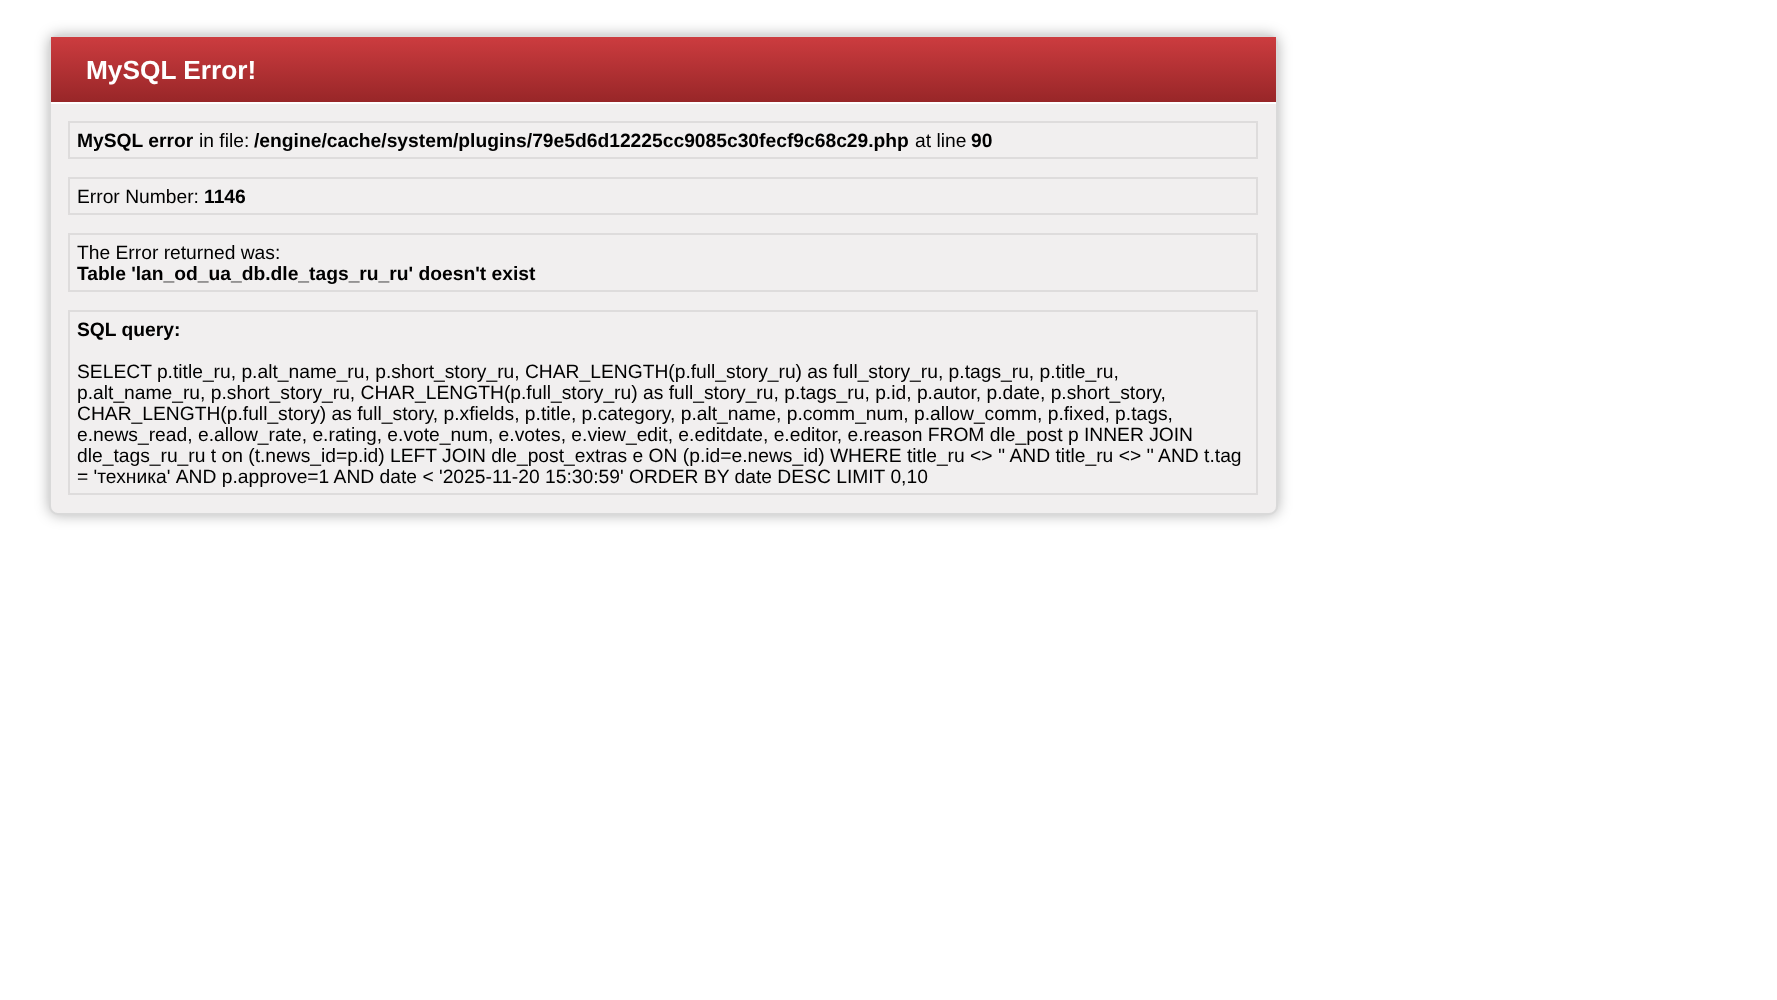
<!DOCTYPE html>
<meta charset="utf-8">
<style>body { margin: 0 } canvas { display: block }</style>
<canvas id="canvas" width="1777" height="1000"></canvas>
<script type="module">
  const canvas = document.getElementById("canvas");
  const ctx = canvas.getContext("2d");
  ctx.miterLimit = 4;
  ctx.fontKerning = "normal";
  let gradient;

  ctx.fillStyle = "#ffffff";
  ctx.fillRect(0, 0, 1777, 1000);
  ctx.fillStyle = "rgba(0, 0, 0, 0.3)";
  ctx.filter = "blur(7px)";
  ctx.beginPath();
  ctx.roundRect(49, 35, 1229, 480, 9);
  ctx.fill();
  ctx.filter = "none";
  ctx.fillStyle = "#f1efef";
  ctx.beginPath();
  ctx.roundRect(50, 36, 1227, 478, 8);
  ctx.fill();
  ctx.strokeStyle = "#d9d9d9";
  ctx.lineWidth = 2;
  ctx.stroke();
  gradient = ctx.createLinearGradient(663, 37, 663, 102);
  gradient.addColorStop(0, "#cc3c3f");
  gradient.addColorStop(1, "#982628");
  ctx.fillStyle = gradient;
  ctx.fillRect(51, 37, 1225, 65);
  ctx.fillStyle = "#ffffff";
  ctx.fillRect(51, 102, 1225, 2);
  ctx.font = "bold 26.25px Liberation Sans";
  ctx.fillText("MySQL Error!", 86, 79);
  ctx.strokeStyle = "#dedcdc";
  ctx.strokeRect(69, 122, 1188, 36);
  ctx.font = "bold 19.25px Liberation Sans";
  ctx.fillStyle = "#000000";
  ctx.fillText("MySQL error", 77, 147);
  ctx.font = "19.25px Liberation Sans";
  ctx.fillText("in file:", 199, 147);
  ctx.font = "bold 19.25px Liberation Sans";
  ctx.fillText("/engine/cache/system/plugins/79e5d6d12225cc9085c30fecf9c68c29.php", 254, 147);
  ctx.font = "19.25px Liberation Sans";
  ctx.fillText("at line", 915, 147);
  ctx.font = "bold 19.25px Liberation Sans";
  ctx.fillText("90", 971, 147);
  ctx.strokeRect(69, 178, 1188, 36);
  ctx.font = "19.25px Liberation Sans";
  ctx.fillText("Error Number:", 77, 203);
  ctx.font = "bold 19.25px Liberation Sans";
  ctx.fillText("1146", 204, 203);
  ctx.strokeRect(69, 234, 1188, 57);
  ctx.font = "19.25px Liberation Sans";
  ctx.fillText("The Error returned was:", 77, 259);
  ctx.font = "bold 19.25px Liberation Sans";
  ctx.fillText("Table 'lan_od_ua_db.dle_tags_ru_ru' doesn't exist", 77, 280);
  ctx.strokeRect(69, 311, 1188, 183);
  ctx.fillText("SQL query:", 77, 336);
  ctx.font = "19.25px Liberation Sans";
  ctx.fillText("SELECT p.title_ru, p.alt_name_ru, p.short_story_ru, CHAR_LENGTH(p.full_story_ru) as full_story_ru, p.tags_ru, p.title_ru,", 77, 378);
  ctx.fillText("p.alt_name_ru, p.short_story_ru, CHAR_LENGTH(p.full_story_ru) as full_story_ru, p.tags_ru, p.id, p.autor, p.date, p.short_story,", 77, 399);
  ctx.fillText("CHAR_LENGTH(p.full_story) as full_story, p.xfields, p.title, p.category, p.alt_name, p.comm_num, p.allow_comm, p.fixed, p.tags,", 77, 420);
  ctx.fillText("e.news_read, e.allow_rate, e.rating, e.vote_num, e.votes, e.view_edit, e.editdate, e.editor, e.reason FROM dle_post p INNER JOIN", 77, 441);
  ctx.fillText("dle_tags_ru_ru t on (t.news_id=p.id) LEFT JOIN dle_post_extras e ON (p.id=e.news_id) WHERE title_ru <> '' AND title_ru <> '' AND t.tag", 77, 462);
  ctx.fillText("= 'техника' AND p.approve=1 AND date < '2025-11-20 15:30:59' ORDER BY date DESC LIMIT 0,10", 77, 483);
</script>
